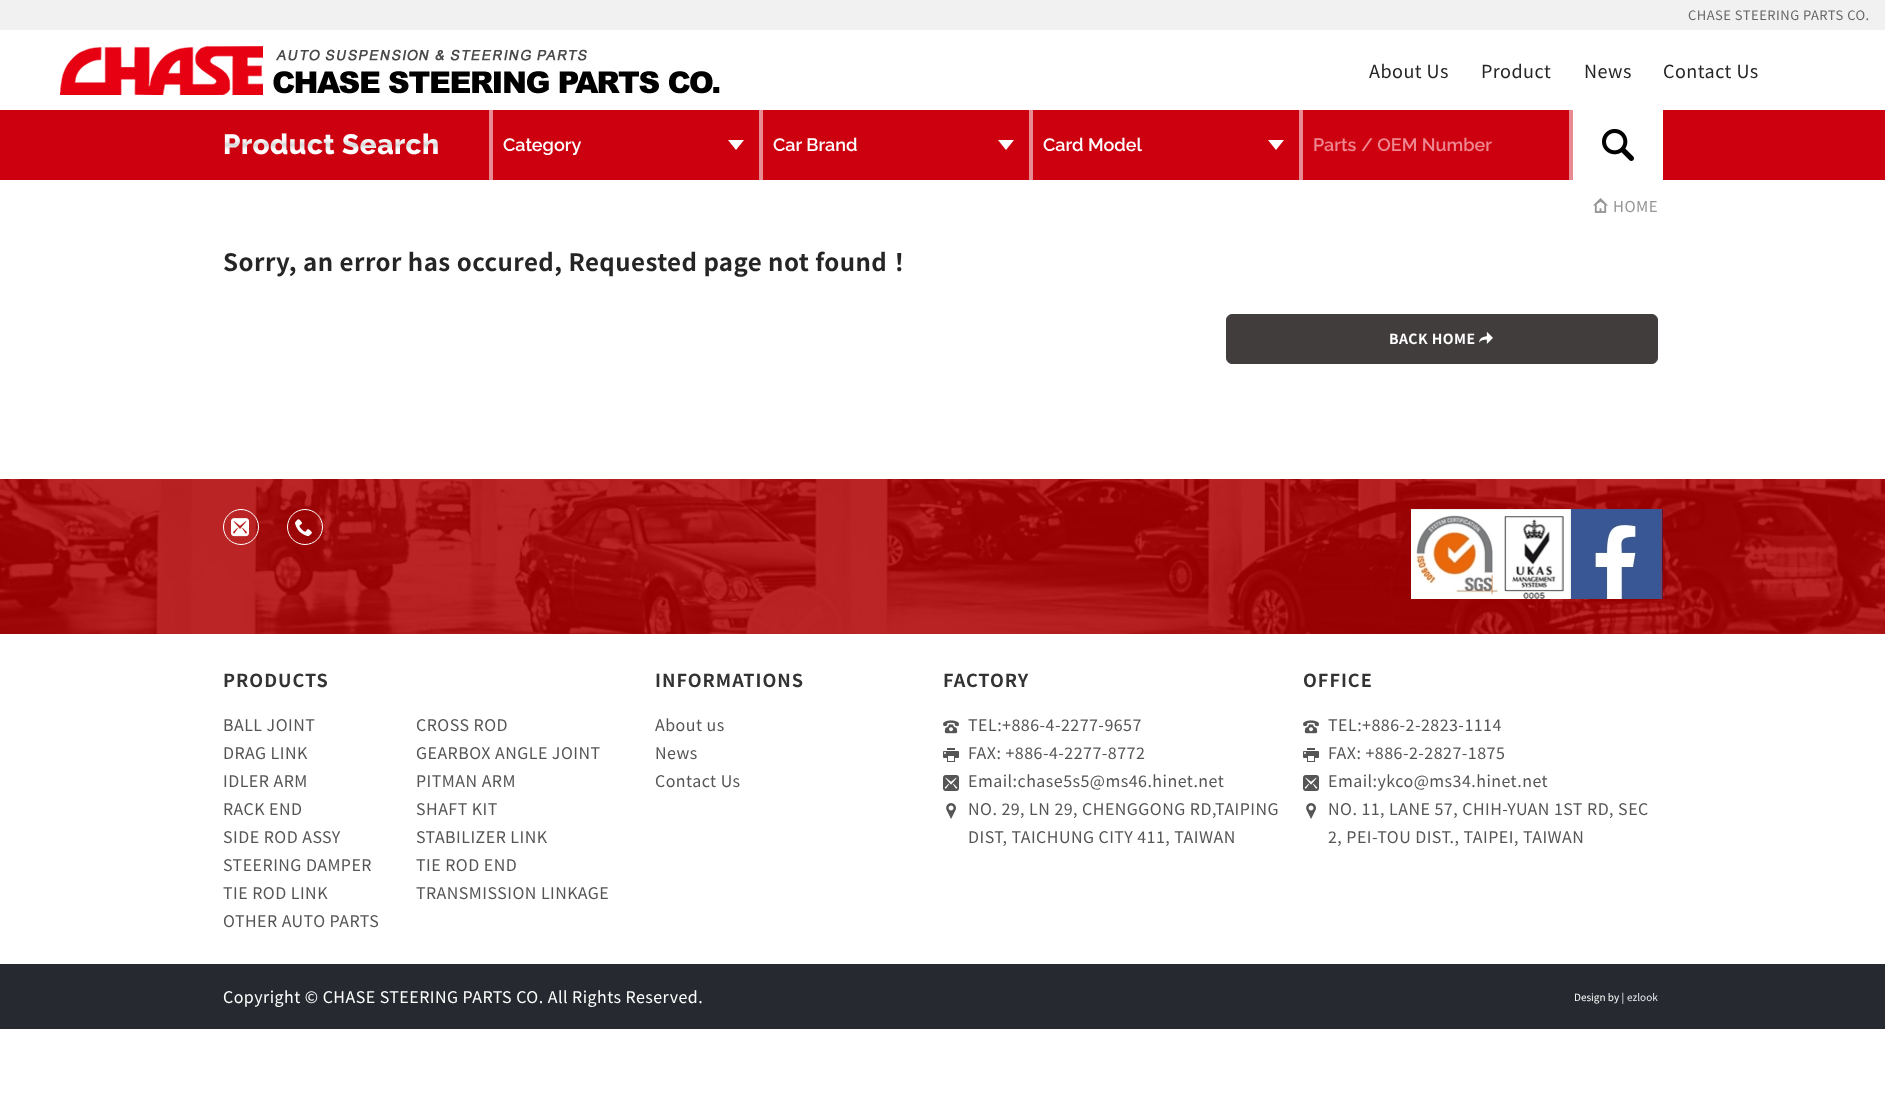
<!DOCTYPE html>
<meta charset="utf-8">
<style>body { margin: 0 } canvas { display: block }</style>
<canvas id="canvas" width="1885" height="1095"></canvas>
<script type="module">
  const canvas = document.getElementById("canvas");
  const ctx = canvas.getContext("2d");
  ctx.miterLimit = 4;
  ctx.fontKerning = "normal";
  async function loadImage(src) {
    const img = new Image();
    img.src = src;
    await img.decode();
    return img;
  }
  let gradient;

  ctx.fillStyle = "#ffffff";
  ctx.fillRect(0, 0, 1885, 1095);
  ctx.fillStyle = "#f1f1f1";
  ctx.fillRect(0, 0, 1885, 30);
  ctx.letterSpacing = "0.48px";
  ctx.font = "13px Noto Sans TC";
  ctx.fillStyle = "#666666";
  ctx.fillText("CHASE STEERING PARTS CO.", 1688, 20);
  ctx.drawImage(await loadImage("img1.png"), 60, 46, 660, 49);
  ctx.font = "18px Noto Sans TC";
  ctx.fillStyle = "#252525";
  ctx.fillText("About Us", 1369, 78);
  ctx.fillText("Product", 1481, 78);
  ctx.fillText("News", 1584, 78);
  ctx.fillText("Contact Us", 1663, 78);
  ctx.fillStyle = "#cc000f";
  ctx.fillRect(0, 110, 1885, 70);
  ctx.fillStyle = "#e78a91";
  ctx.fillRect(489, 110, 4, 70);
  ctx.font = "800 28px Raleway";
  gradient = ctx.createLinearGradient(356, 110, 356, 180);
  gradient.addColorStop(0.42, "#ffffff");
  gradient.addColorStop(0.5, "#d6d6d6");
  gradient.addColorStop(0.57, "#ffffff");
  ctx.fillStyle = gradient;
  ctx.fillText("Product Search", 223, 154);
  ctx.fillStyle = "#e78a91";
  ctx.fillRect(759, 110, 4, 70);
  ctx.letterSpacing = "0px";
  ctx.font = "600 18px Raleway";
  ctx.fillStyle = "#ffffff";
  ctx.fillText("Category", 503, 151);
  ctx.beginPath();
  ctx.moveTo(728, 140);
  ctx.lineTo(744, 140);
  ctx.lineTo(736, 150);
  ctx.closePath();
  ctx.fill();
  ctx.fillStyle = "#e78a91";
  ctx.fillRect(1029, 110, 4, 70);
  ctx.fillStyle = "#ffffff";
  ctx.fillText("Car Brand", 773, 151);
  ctx.beginPath();
  ctx.moveTo(998, 140);
  ctx.lineTo(1014, 140);
  ctx.lineTo(1006, 150);
  ctx.closePath();
  ctx.fill();
  ctx.fillStyle = "#e78a91";
  ctx.fillRect(1299, 110, 4, 70);
  ctx.fillStyle = "#ffffff";
  ctx.fillText("Card Model", 1043, 151);
  ctx.beginPath();
  ctx.moveTo(1268, 140);
  ctx.lineTo(1284, 140);
  ctx.lineTo(1276, 150);
  ctx.closePath();
  ctx.fill();
  ctx.fillStyle = "#e78a91";
  ctx.fillRect(1569, 110, 4, 70);
  ctx.fillStyle = "#ef8792";
  ctx.fillText("Parts / OEM Number", 1313, 151);
  ctx.fillStyle = "#ffffff";
  ctx.fillRect(1573, 110, 90, 70);
  ctx.drawImage(await loadImage("img2.png"), 1602, 129, 32, 32);
  ctx.drawImage(await loadImage("img3.png"), 1593, 198, 15, 15);
  ctx.letterSpacing = "0.48px";
  ctx.font = "15px Noto Sans TC";
  ctx.fillStyle = "#959595";
  ctx.fillText("HOME", 1613, 212);
  ctx.font = "bold 24px Noto Sans TC";
  ctx.fillStyle = "#252525";
  ctx.fillText("Sorry, an error has occured, Requested page not found！", 223, 271);
  ctx.fillStyle = "#413d3d";
  ctx.beginPath();
  ctx.roundRect(1226.5, 314.5, 431, 49, 5.5);
  ctx.fill();
  ctx.strokeStyle = "#413d3d";
  ctx.stroke();
  ctx.font = "bold 14px Noto Sans TC";
  ctx.fillStyle = "#ffffff";
  ctx.fillText("BACK HOME", 1389, 344);
  ctx.drawImage(await loadImage("img4.png"), 1479, 331, 14, 13);
  ctx.drawImage(await loadImage("img5.png"), 0, 479, 1885, 155);
  ctx.beginPath();
  ctx.arc(241, 527, 17.5, 0, Math.PI * 2);
  ctx.strokeStyle = "#ffffff";
  ctx.stroke();
  ctx.drawImage(await loadImage("img6.png"), 231, 518, 18, 19);
  ctx.beginPath();
  ctx.arc(305, 527, 17.5, 0, Math.PI * 2);
  ctx.stroke();
  ctx.drawImage(await loadImage("img7.png"), 295, 519, 17, 18);
  ctx.drawImage(await loadImage("img8.png"), 1411, 509, 160, 90);
  ctx.drawImage(await loadImage("img9.png"), 1571, 509, 92, 90);
  ctx.letterSpacing = "1px";
  ctx.font = "bold 18px Noto Sans TC";
  ctx.fillStyle = "#333333";
  ctx.fillText("PRODUCTS", 223, 687);
  ctx.letterSpacing = "0.48px";
  ctx.font = "16px Noto Sans TC";
  ctx.fillStyle = "#555555";
  ctx.fillText("BALL JOINT", 223, 731);
  ctx.fillText("CROSS ROD", 416, 731);
  ctx.fillText("DRAG LINK", 223, 759);
  ctx.fillText("GEARBOX ANGLE JOINT", 416, 759);
  ctx.fillText("IDLER ARM", 223, 787);
  ctx.fillText("PITMAN ARM", 416, 787);
  ctx.fillText("RACK END", 223, 815);
  ctx.fillText("SHAFT KIT", 416, 815);
  ctx.fillText("SIDE ROD ASSY", 223, 843);
  ctx.fillText("STABILIZER LINK", 416, 843);
  ctx.fillText("STEERING DAMPER", 223, 871);
  ctx.fillText("TIE ROD END", 416, 871);
  ctx.fillText("TIE ROD LINK", 223, 899);
  ctx.fillText("TRANSMISSION LINKAGE", 416, 899);
  ctx.fillText("OTHER AUTO PARTS", 223, 927);
  ctx.letterSpacing = "1px";
  ctx.font = "bold 18px Noto Sans TC";
  ctx.fillStyle = "#333333";
  ctx.fillText("INFORMATIONS", 655, 687);
  ctx.letterSpacing = "0.48px";
  ctx.font = "16px Noto Sans TC";
  ctx.fillStyle = "#555555";
  ctx.fillText("About us", 655, 731);
  ctx.fillText("News", 655, 759);
  ctx.fillText("Contact Us", 655, 787);
  ctx.letterSpacing = "1px";
  ctx.font = "bold 18px Noto Sans TC";
  ctx.fillStyle = "#333333";
  ctx.fillText("FACTORY", 943, 687);
  ctx.drawImage(await loadImage("img10.png"), 943, 720, 16, 14);
  ctx.letterSpacing = "0.48px";
  ctx.font = "16px Noto Sans TC";
  ctx.fillStyle = "#555555";
  ctx.fillText("TEL:+886-4-2277-9657", 968, 731);
  ctx.drawImage(await loadImage("img11.png"), 943, 748, 16, 14);
  ctx.fillText("FAX: +886-4-2277-8772", 968, 759);
  ctx.drawImage(await loadImage("img12.png"), 943, 775, 16, 16);
  ctx.fillText("Email:chase5s5@ms46.hinet.net", 968, 787);
  ctx.drawImage(await loadImage("img13.png"), 946, 803, 10, 16);
  ctx.fillText("NO. 29, LN 29, CHENGGONG RD,TAIPING", 968, 815);
  ctx.fillText("DIST, TAICHUNG CITY 411, TAIWAN", 968, 843);
  ctx.letterSpacing = "1px";
  ctx.font = "bold 18px Noto Sans TC";
  ctx.fillStyle = "#333333";
  ctx.fillText("OFFICE", 1303, 687);
  ctx.drawImage(await loadImage("img10.png"), 1303, 720, 16, 14);
  ctx.letterSpacing = "0.48px";
  ctx.font = "16px Noto Sans TC";
  ctx.fillStyle = "#555555";
  ctx.fillText("TEL:+886-2-2823-1114", 1328, 731);
  ctx.drawImage(await loadImage("img11.png"), 1303, 748, 16, 14);
  ctx.fillText("FAX: +886-2-2827-1875", 1328, 759);
  ctx.drawImage(await loadImage("img12.png"), 1303, 775, 16, 16);
  ctx.fillText("Email:ykco@ms34.hinet.net", 1328, 787);
  ctx.drawImage(await loadImage("img13.png"), 1306, 803, 10, 16);
  ctx.fillText("NO. 11, LANE 57, CHIH-YUAN 1ST RD, SEC", 1328, 815);
  ctx.fillText("2, PEI-TOU DIST., TAIPEI, TAIWAN", 1328, 843);
  ctx.fillStyle = "#26292f";
  ctx.fillRect(0, 964, 1885, 65);
  ctx.fillStyle = "#ffffff";
  ctx.fillText("Copyright © CHASE STEERING PARTS CO. All Rights Reserved.", 223, 1003);
  ctx.letterSpacing = "0px";
  ctx.font = "10px Noto Sans TC";
  ctx.fillText("Design by |", 1574, 1001);
  ctx.fillStyle = "#e9ecef";
  ctx.fillText("ezlook", 1627, 1001);
</script>
